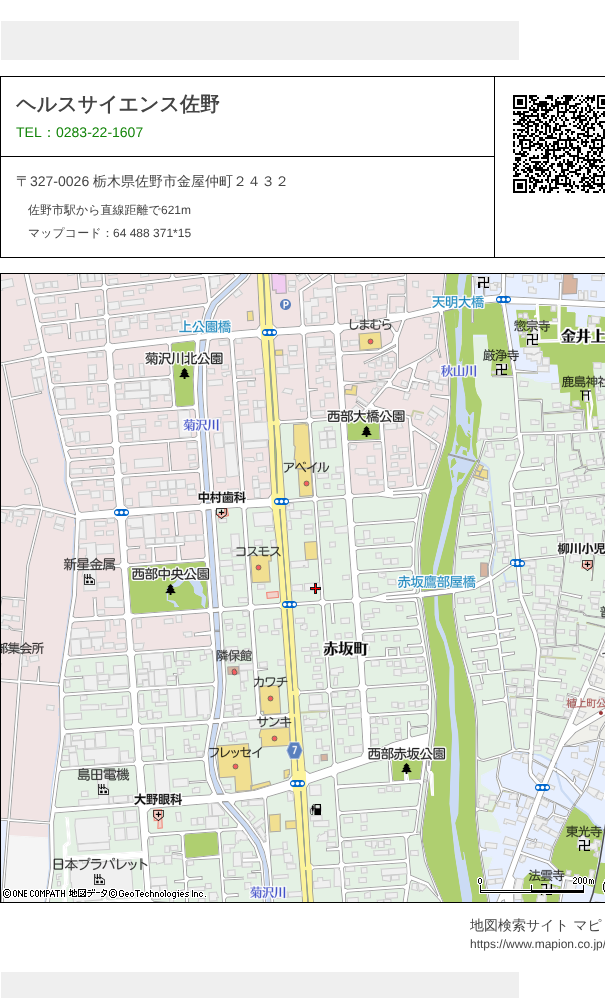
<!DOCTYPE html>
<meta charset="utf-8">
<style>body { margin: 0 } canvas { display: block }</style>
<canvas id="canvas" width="605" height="998"></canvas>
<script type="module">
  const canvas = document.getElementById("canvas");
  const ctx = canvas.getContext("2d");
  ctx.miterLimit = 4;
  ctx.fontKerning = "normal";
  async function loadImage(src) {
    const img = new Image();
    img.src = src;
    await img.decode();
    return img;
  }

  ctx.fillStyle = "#ffffff";
  ctx.fillRect(0, 0, 605, 998);
  ctx.fillStyle = "#efefef";
  ctx.fillRect(1, 21, 518, 39);
  ctx.fillStyle = "#000000";
  ctx.fillRect(0, 76, 605, 1);
  ctx.fillRect(0, 257, 605, 1);
  ctx.fillRect(0, 76, 1, 182);
  ctx.fillRect(494, 76, 1, 182);
  ctx.fillRect(0, 156, 495, 1);
  ctx.font = "bold 20px WenQuanYi Zen Hei";
  ctx.fillStyle = "#444444";
  ctx.fillText("ヘルスサイエンス佐野", 16, 111);
  ctx.font = "14px Liberation Sans";
  ctx.fillStyle = "#138509";
  ctx.fillText("TEL", 16, 137);
  ctx.font = "500 14px WenQuanYi Zen Hei";
  ctx.fillText("：", 42, 137);
  ctx.font = "14px Liberation Sans";
  ctx.fillText("0283-22-1607", 56, 137);
  ctx.drawImage(await loadImage("img1.png"), 513, 95, 92, 98);
  ctx.font = "500 14px WenQuanYi Zen Hei";
  ctx.fillStyle = "#444444";
  ctx.fillText("〒", 16, 186);
  ctx.font = "14px Liberation Sans";
  ctx.fillText("327-0026", 30, 186);
  ctx.font = "500 14px WenQuanYi Zen Hei";
  ctx.fillText("栃木県佐野市金屋仲町２４３２", 93, 186);
  ctx.font = "500 12px WenQuanYi Zen Hei";
  ctx.fillText("佐野市駅から直線距離で", 28, 214);
  ctx.font = "12px Liberation Sans";
  ctx.fillText("621m", 161, 214);
  ctx.font = "500 12px WenQuanYi Zen Hei";
  ctx.fillText("マップコード：", 28, 237);
  ctx.font = "12px Liberation Sans";
  ctx.fillText("64 488 371*15", 113, 237);
  ctx.strokeStyle = "#000000";
  ctx.strokeRect(0.5, 273.5, 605, 629);
  ctx.drawImage(await loadImage("img2.png"), 1, 274, 604, 628);
  ctx.font = "500 14px WenQuanYi Zen Hei";
  ctx.fillText("地図検索サイト マピ", 470, 930);
  ctx.font = "12px Liberation Sans";
  ctx.fillText("https://www.mapion.co.jp/", 470, 948);
  ctx.fillStyle = "#efefef";
  ctx.fillRect(1, 972, 518, 26);
</script>
